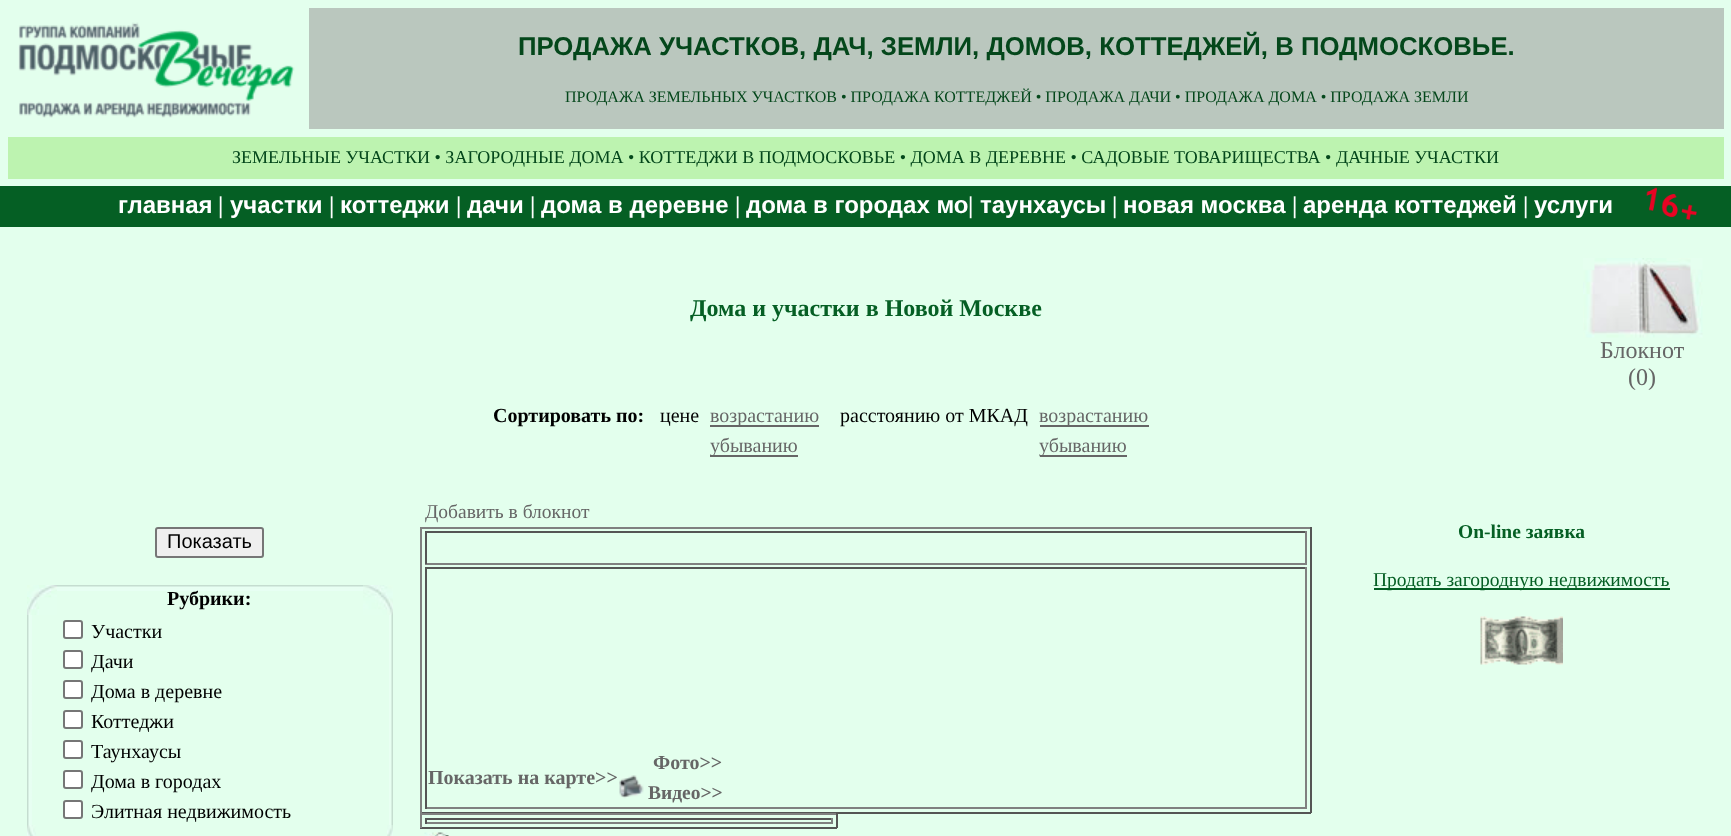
<!DOCTYPE html>
<meta charset="utf-8">
<style>body { margin: 0 } canvas { display: block }</style>
<canvas id="canvas" width="1731" height="836"></canvas>
<script type="module">
  const canvas = document.getElementById("canvas");
  const ctx = canvas.getContext("2d");
  ctx.miterLimit = 4;
  ctx.fontKerning = "normal";
  async function loadImage(src) {
    const img = new Image();
    img.src = src;
    await img.decode();
    return img;
  }

  ctx.fillStyle = "#e3ffed";
  ctx.fillRect(0, 0, 1731, 836);
  ctx.drawImage(await loadImage("img1.png"), 18, 22, 277, 96);
  ctx.fillStyle = "#bac7be";
  ctx.fillRect(309, 8, 1415, 121);
  ctx.font = "bold 25.75px Liberation Sans";
  ctx.fillStyle = "#04471b";
  ctx.fillText("ПРОДАЖА УЧАСТКОВ, ДАЧ, ЗЕМЛИ, ДОМОВ, КОТТЕДЖЕЙ, В ПОДМОСКОВЬЕ.", 518, 55);
  ctx.font = "16px Liberation Serif";
  ctx.fillText("ПРОДАЖА ЗЕМЕЛЬНЫХ УЧАСТКОВ • ПРОДАЖА", 565, 102);
  ctx.fillText("КОТТЕДЖЕЙ • ПРОДАЖА ДАЧИ • ПРОДАЖА ДОМА • ПРОДАЖА ЗЕМЛИ", 934, 102);
  ctx.fillStyle = "#bdf3b0";
  ctx.fillRect(8, 137, 1716, 42);
  ctx.font = "18px Liberation Serif";
  ctx.fillStyle = "#04471b";
  ctx.fillText("ЗЕМЕЛЬНЫЕ УЧАСТКИ • ЗАГОРОДНЫЕ ДОМА • КОТТЕДЖИ В ПОДМОСКОВЬЕ • ДОМА В ДЕРЕВНЕ • САДОВЫЕ ТОВАРИЩЕСТВА • ДАЧНЫЕ УЧАСТКИ", 232, 163);
  ctx.fillStyle = "#055f24";
  ctx.fillRect(0, 186, 1731, 41);
  ctx.font = "bold 24px Liberation Sans";
  ctx.fillStyle = "#ffffff";
  ctx.fillText("главная", 118, 213);
  ctx.font = "bold 24px Liberation Serif";
  ctx.fillText("|", 218, 213);
  ctx.font = "bold 24px Liberation Sans";
  ctx.fillText("участки", 230, 213);
  ctx.font = "bold 24px Liberation Serif";
  ctx.fillText("|", 329, 213);
  ctx.font = "bold 24px Liberation Sans";
  ctx.fillText("коттеджи", 340, 213);
  ctx.font = "bold 24px Liberation Serif";
  ctx.fillText("|", 456, 213);
  ctx.font = "bold 24px Liberation Sans";
  ctx.fillText("дачи", 467, 213);
  ctx.font = "bold 24px Liberation Serif";
  ctx.fillText("|", 530, 213);
  ctx.font = "bold 24px Liberation Sans";
  ctx.fillText("дома в деревне", 541, 213);
  ctx.font = "bold 24px Liberation Serif";
  ctx.fillText("|", 735, 213);
  ctx.font = "bold 24px Liberation Sans";
  ctx.fillText("дома в городах мо", 746, 213);
  ctx.font = "bold 24px Liberation Serif";
  ctx.fillText("|", 968, 213);
  ctx.font = "bold 24px Liberation Sans";
  ctx.fillText("таунхаусы", 980, 213);
  ctx.font = "bold 24px Liberation Serif";
  ctx.fillText("|", 1112, 213);
  ctx.font = "bold 24px Liberation Sans";
  ctx.fillText("новая москва", 1123, 213);
  ctx.font = "bold 24px Liberation Serif";
  ctx.fillText("|", 1292, 213);
  ctx.font = "bold 24px Liberation Sans";
  ctx.fillText("аренда коттеджей", 1303, 213);
  ctx.font = "bold 24px Liberation Serif";
  ctx.fillText("|", 1523, 213);
  ctx.font = "bold 24px Liberation Sans";
  ctx.fillText("услуги", 1534, 213);
  ctx.drawImage(await loadImage("img2.png"), 1646, 187, 51, 33);
  ctx.font = "bold 24px Liberation Serif";
  ctx.fillStyle = "#055f24";
  ctx.fillText("Дома и участки в Новой Москве", 690, 316);
  ctx.drawImage(await loadImage("img3.png"), 1583, 258, 120, 80);
  ctx.font = "24px Liberation Serif";
  ctx.fillStyle = "#666666";
  ctx.fillText("Блокнот", 1600, 358);
  ctx.fillText("(0)", 1628, 385);
  ctx.font = "bold 20px Liberation Serif";
  ctx.fillStyle = "#000000";
  ctx.fillText("Сортировать по:", 493, 422);
  ctx.font = "20px Liberation Serif";
  ctx.fillText("цене", 660, 422);
  ctx.fillStyle = "#666666";
  ctx.fillRect(710, 425, 109, 2);
  ctx.fillText("возрастанию", 710, 422);
  ctx.fillStyle = "#000000";
  ctx.fillText("расстоянию от МКАД", 840, 422);
  ctx.fillStyle = "#666666";
  ctx.fillRect(1040, 425, 109, 2);
  ctx.fillText("возрастанию", 1039, 422);
  ctx.fillRect(710, 455, 88, 2);
  ctx.fillText("убыванию", 710, 452);
  ctx.fillRect(1040, 455, 87, 2);
  ctx.fillText("убыванию", 1039, 452);
  ctx.fillStyle = "#efefef";
  ctx.beginPath();
  ctx.roundRect(156, 528, 107, 29, 2);
  ctx.fill();
  ctx.strokeStyle = "#767676";
  ctx.lineWidth = 2;
  ctx.stroke();
  ctx.font = "20px Liberation Sans";
  ctx.fillStyle = "#000000";
  ctx.fillText("Показать", 167, 548);
  ctx.drawImage(await loadImage("img4.png"), 27, 585, 30, 30);
  ctx.drawImage(await loadImage("img5.png"), 57, 585, 306, 6);
  ctx.font = "bold 20px Liberation Serif";
  ctx.fillText("Рубрики:", 167, 605);
  ctx.drawImage(await loadImage("img6.png"), 363, 585, 30, 30);
  ctx.drawImage(await loadImage("img7.png"), 27, 615, 5, 210);
  ctx.fillStyle = "#ffffff";
  ctx.beginPath();
  ctx.roundRect(64, 621, 18, 17, 2);
  ctx.fill();
  ctx.stroke();
  ctx.font = "20px Liberation Serif";
  ctx.fillStyle = "#000000";
  ctx.fillText("Участки", 91, 638);
  ctx.fillStyle = "#ffffff";
  ctx.beginPath();
  ctx.roundRect(64, 651, 18, 17, 2);
  ctx.fill();
  ctx.stroke();
  ctx.fillStyle = "#000000";
  ctx.fillText("Дачи", 91, 668);
  ctx.fillStyle = "#ffffff";
  ctx.beginPath();
  ctx.roundRect(64, 681, 18, 17, 2);
  ctx.fill();
  ctx.stroke();
  ctx.fillStyle = "#000000";
  ctx.fillText("Дома в деревне", 91, 698);
  ctx.fillStyle = "#ffffff";
  ctx.beginPath();
  ctx.roundRect(64, 711, 18, 17, 2);
  ctx.fill();
  ctx.stroke();
  ctx.fillStyle = "#000000";
  ctx.fillText("Коттеджи", 91, 728);
  ctx.fillStyle = "#ffffff";
  ctx.beginPath();
  ctx.roundRect(64, 741, 18, 17, 2);
  ctx.fill();
  ctx.stroke();
  ctx.fillStyle = "#000000";
  ctx.fillText("Таунхаусы", 91, 758);
  ctx.fillStyle = "#ffffff";
  ctx.beginPath();
  ctx.roundRect(64, 771, 18, 17, 2);
  ctx.fill();
  ctx.stroke();
  ctx.fillStyle = "#000000";
  ctx.fillText("Дома в городах", 91, 788);
  ctx.fillStyle = "#ffffff";
  ctx.beginPath();
  ctx.roundRect(64, 801, 18, 17, 2);
  ctx.fill();
  ctx.stroke();
  ctx.fillStyle = "#000000";
  ctx.fillText("Элитная недвижимость", 91, 818);
  ctx.drawImage(await loadImage("img8.png"), 389, 615, 4, 210);
  ctx.drawImage(await loadImage("img9.png"), 27, 825, 9, 11);
  ctx.drawImage(await loadImage("img10.png"), 387, 825, 6, 11);
  ctx.font = "19.5px Liberation Serif";
  ctx.fillStyle = "#666666";
  ctx.fillText("Добавить в блокнот", 425, 518);
  ctx.fillStyle = "#808080";
  ctx.fillRect(420, 527, 891, 2);
  ctx.fillStyle = "#555555";
  ctx.fillRect(1310, 527, 2, 286);
  ctx.fillRect(420, 812, 891, 2);
  ctx.fillStyle = "#808080";
  ctx.fillRect(420, 527, 2, 286);
  ctx.fillStyle = "#555555";
  ctx.fillRect(425, 531, 882, 2);
  ctx.fillStyle = "#808080";
  ctx.fillRect(1305, 531, 2, 33);
  ctx.fillRect(425, 563, 882, 2);
  ctx.fillStyle = "#555555";
  ctx.fillRect(425, 531, 2, 33);
  ctx.fillRect(425, 567, 882, 2);
  ctx.fillStyle = "#808080";
  ctx.fillRect(1305, 567, 2, 242);
  ctx.fillRect(425, 807, 882, 2);
  ctx.fillStyle = "#555555";
  ctx.fillRect(425, 567, 2, 242);
  ctx.font = "bold 20px Liberation Serif";
  ctx.fillStyle = "#666666";
  ctx.fillText("Показать на карте>>", 428, 784);
  ctx.fillText("Фото>>", 653, 769);
  ctx.drawImage(await loadImage("img11.png"), 619, 775, 25, 24);
  ctx.font = "bold 19.5px Liberation Serif";
  ctx.fillText("Видео>>", 648, 799);
  ctx.fillStyle = "#808080";
  ctx.fillRect(420, 813, 417, 2);
  ctx.fillStyle = "#555555";
  ctx.fillRect(836, 813, 2, 15);
  ctx.fillRect(420, 827, 417, 2);
  ctx.fillStyle = "#808080";
  ctx.fillRect(420, 813, 2, 15);
  ctx.fillStyle = "#555555";
  ctx.fillRect(425, 818, 408, 2);
  ctx.fillStyle = "#808080";
  ctx.fillRect(831, 818, 2, 6);
  ctx.fillRect(425, 822, 408, 2);
  ctx.fillStyle = "#555555";
  ctx.fillRect(425, 818, 2, 6);
  ctx.drawImage(await loadImage("img12.png"), 424, 832, 25, 4);
  ctx.fillStyle = "#055f24";
  ctx.fillText("On-line заявка", 1458, 538);
  ctx.fillRect(1374, 588, 296, 2);
  ctx.font = "19.5px Liberation Serif";
  ctx.fillText("Продать загородную недвижимость", 1373, 586);
  ctx.drawImage(await loadImage("img13.png"), 1480, 616, 83, 49);
</script>
